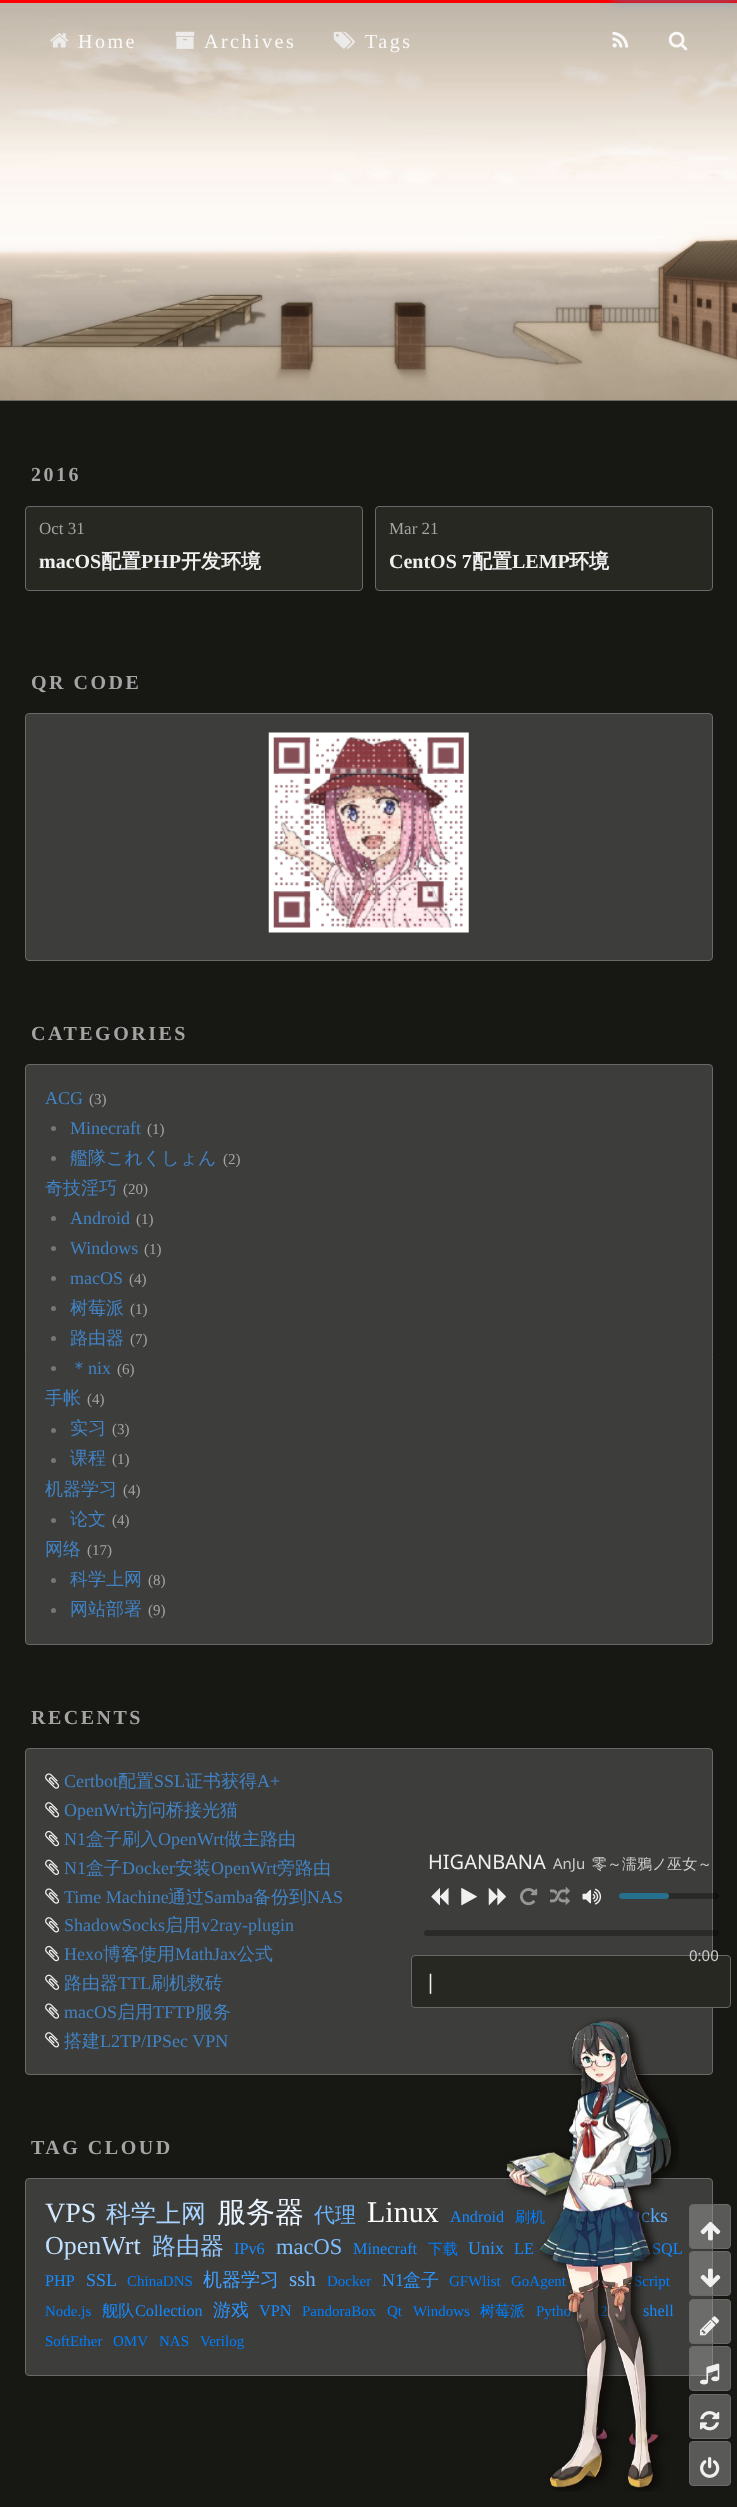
<!DOCTYPE html>
<meta charset="utf-8">
<style>body { margin: 0 } canvas { display: block }</style>
<canvas id="canvas" width="737" height="2507"></canvas>
<script type="module">
  const canvas = document.getElementById("canvas");
  const ctx = canvas.getContext("2d");
  ctx.miterLimit = 4;
  ctx.fontKerning = "normal";
  async function loadImage(src) {
    const img = new Image();
    img.src = src;
    await img.decode();
    return img;
  }

  ctx.fillStyle = "#171714";
  ctx.fillRect(0, 0, 737, 2507);
  ctx.fillStyle = "#ff0000";
  ctx.fillRect(0, 0, 737, 3);
  ctx.drawImage(await loadImage("img1.png"), 0, 3, 737, 397);
  ctx.fillStyle = "#2299dd";
  ctx.filter = "blur(3px)";
  ctx.beginPath();
  ctx.rect(613, -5, 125, 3);
  ctx.fill();
  ctx.filter = "none";
  ctx.filter = "blur(6.5px)";
  ctx.beginPath();
  ctx.rect(613, -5, 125, 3);
  ctx.fill();
  ctx.filter = "none";
  ctx.fillStyle = "#696969";
  ctx.fillRect(0, 400, 737, 1);
  ctx.drawImage(await loadImage("img2.png"), 50, 33, 19, 15);
  ctx.letterSpacing = "2.5px";
  ctx.font = "20px Liberation Serif";
  ctx.fillStyle = "#faf9f8";
  ctx.fillText("Home", 78, 48);
  ctx.drawImage(await loadImage("img3.png"), 175, 31, 20, 18);
  ctx.fillText("Archives", 204, 48);
  ctx.drawImage(await loadImage("img4.png"), 333, 31, 22, 18);
  ctx.fillText("Tags", 365, 48);
  ctx.drawImage(await loadImage("img5.png"), 612, 31, 17, 17);
  ctx.drawImage(await loadImage("img6.png"), 668, 31, 20, 20);
  ctx.font = "bold 20px Liberation Serif";
  ctx.fillStyle = "#a4a4a4";
  ctx.fillText("2016", 31, 481);
  ctx.fillStyle = "#272822";
  ctx.beginPath();
  ctx.roundRect(25.5, 506.5, 337, 84, 3.5);
  ctx.fill();
  ctx.strokeStyle = "#696969";
  ctx.stroke();
  ctx.letterSpacing = "0px";
  ctx.font = "17px Liberation Serif";
  ctx.fillStyle = "#a4a4a4";
  ctx.fillText("Oct 31", 39, 534);
  ctx.font = "bold 20px Liberation Serif";
  ctx.fillStyle = "#f0f0f0";
  ctx.fillText("macOS", 39, 568);
  ctx.font = "bold 20px WenQuanYi Zen Hei";
  ctx.fillText("配置", 101, 568);
  ctx.font = "bold 20px Liberation Serif";
  ctx.fillText("PHP", 141, 568);
  ctx.font = "bold 20px WenQuanYi Zen Hei";
  ctx.fillText("开发环境", 181, 568);
  ctx.fillStyle = "#272822";
  ctx.beginPath();
  ctx.roundRect(375.5, 506.5, 337, 84, 3.5);
  ctx.fill();
  ctx.stroke();
  ctx.font = "17px Liberation Serif";
  ctx.fillStyle = "#a4a4a4";
  ctx.fillText("Mar 21", 389, 534);
  ctx.font = "bold 20px Liberation Serif";
  ctx.fillStyle = "#f0f0f0";
  ctx.fillText("CentOS 7", 389, 568);
  ctx.font = "bold 20px WenQuanYi Zen Hei";
  ctx.fillText("配置", 472, 568);
  ctx.font = "bold 20px Liberation Serif";
  ctx.fillText("LEMP", 512, 568);
  ctx.font = "bold 20px WenQuanYi Zen Hei";
  ctx.fillText("环境", 569, 568);
  ctx.letterSpacing = "2.5px";
  ctx.font = "bold 20px Liberation Serif";
  ctx.fillStyle = "#a4a4a4";
  ctx.fillText("QR CODE", 31, 689);
  ctx.fillStyle = "#3d3d3b";
  ctx.beginPath();
  ctx.roundRect(25.5, 713.5, 687, 247, 3.5);
  ctx.fill();
  ctx.stroke();
  ctx.drawImage(await loadImage("img7.png"), 268, 732, 201, 201);
  ctx.fillStyle = "#a4a4a4";
  ctx.fillText("CATEGORIES", 31, 1040);
  ctx.fillStyle = "#3d3d3b";
  ctx.beginPath();
  ctx.roundRect(25.5, 1064.5, 687, 580, 3.5);
  ctx.fill();
  ctx.stroke();
  ctx.letterSpacing = "0px";
  ctx.font = "18px Liberation Serif";
  ctx.fillStyle = "#4183c4";
  ctx.fillText("ACG", 45, 1104);
  ctx.font = "15px Liberation Serif";
  ctx.fillStyle = "#a4a4a4";
  ctx.fillText("(3)", 89, 1104);
  ctx.fillStyle = "#777777";
  ctx.beginPath();
  ctx.arc(53.5, 1128.5, 2.5, 0, Math.PI * 2);
  ctx.fill();
  ctx.font = "18px Liberation Serif";
  ctx.fillStyle = "#4183c4";
  ctx.fillText("Minecraft", 70, 1134);
  ctx.font = "15px Liberation Serif";
  ctx.fillStyle = "#a4a4a4";
  ctx.fillText("(1)", 147, 1134);
  ctx.fillStyle = "#777777";
  ctx.beginPath();
  ctx.arc(53.5, 1158.5, 2.5, 0, Math.PI * 2);
  ctx.fill();
  ctx.font = "500 18px WenQuanYi Zen Hei";
  ctx.fillStyle = "#4183c4";
  ctx.fillText("艦隊これくしょん", 70, 1164);
  ctx.font = "15px Liberation Serif";
  ctx.fillStyle = "#a4a4a4";
  ctx.fillText("(2)", 223, 1164);
  ctx.font = "500 18px WenQuanYi Zen Hei";
  ctx.fillStyle = "#4183c4";
  ctx.fillText("奇技淫巧", 45, 1194);
  ctx.font = "15px Liberation Serif";
  ctx.fillStyle = "#a4a4a4";
  ctx.fillText("(20)", 123, 1194);
  ctx.fillStyle = "#777777";
  ctx.beginPath();
  ctx.arc(53.5, 1218.5, 2.5, 0, Math.PI * 2);
  ctx.fill();
  ctx.font = "18px Liberation Serif";
  ctx.fillStyle = "#4183c4";
  ctx.fillText("Android", 70, 1224);
  ctx.font = "15px Liberation Serif";
  ctx.fillStyle = "#a4a4a4";
  ctx.fillText("(1)", 136, 1224);
  ctx.fillStyle = "#777777";
  ctx.beginPath();
  ctx.arc(53.5, 1248.5, 2.5, 0, Math.PI * 2);
  ctx.fill();
  ctx.font = "18px Liberation Serif";
  ctx.fillStyle = "#4183c4";
  ctx.fillText("Windows", 70, 1254);
  ctx.font = "15px Liberation Serif";
  ctx.fillStyle = "#a4a4a4";
  ctx.fillText("(1)", 144, 1254);
  ctx.fillStyle = "#777777";
  ctx.beginPath();
  ctx.arc(53.5, 1278.5, 2.5, 0, Math.PI * 2);
  ctx.fill();
  ctx.font = "18px Liberation Serif";
  ctx.fillStyle = "#4183c4";
  ctx.fillText("macOS", 70, 1284);
  ctx.font = "15px Liberation Serif";
  ctx.fillStyle = "#a4a4a4";
  ctx.fillText("(4)", 129, 1284);
  ctx.fillStyle = "#777777";
  ctx.beginPath();
  ctx.arc(53.5, 1308.5, 2.5, 0, Math.PI * 2);
  ctx.fill();
  ctx.font = "500 18px WenQuanYi Zen Hei";
  ctx.fillStyle = "#4183c4";
  ctx.fillText("树莓派", 70, 1314);
  ctx.font = "15px Liberation Serif";
  ctx.fillStyle = "#a4a4a4";
  ctx.fillText("(1)", 130, 1314);
  ctx.fillStyle = "#777777";
  ctx.beginPath();
  ctx.arc(53.5, 1338.5, 2.5, 0, Math.PI * 2);
  ctx.fill();
  ctx.font = "500 18px WenQuanYi Zen Hei";
  ctx.fillStyle = "#4183c4";
  ctx.fillText("路由器", 70, 1344);
  ctx.font = "15px Liberation Serif";
  ctx.fillStyle = "#a4a4a4";
  ctx.fillText("(7)", 130, 1344);
  ctx.fillStyle = "#777777";
  ctx.beginPath();
  ctx.arc(53.5, 1368.5, 2.5, 0, Math.PI * 2);
  ctx.fill();
  ctx.font = "500 18px WenQuanYi Zen Hei";
  ctx.fillStyle = "#4183c4";
  ctx.fillText("＊", 70, 1374);
  ctx.font = "18px Liberation Serif";
  ctx.fillText("nix", 88, 1374);
  ctx.font = "15px Liberation Serif";
  ctx.fillStyle = "#a4a4a4";
  ctx.fillText("(6)", 117, 1374);
  ctx.font = "500 18px WenQuanYi Zen Hei";
  ctx.fillStyle = "#4183c4";
  ctx.fillText("手帐", 45, 1404);
  ctx.font = "15px Liberation Serif";
  ctx.fillStyle = "#a4a4a4";
  ctx.fillText("(4)", 87, 1404);
  ctx.fillStyle = "#777777";
  ctx.beginPath();
  ctx.arc(53.5, 1430.5, 2.5, 0, Math.PI * 2);
  ctx.fill();
  ctx.font = "500 18px WenQuanYi Zen Hei";
  ctx.fillStyle = "#4183c4";
  ctx.fillText("实习", 70, 1434);
  ctx.font = "15px Liberation Serif";
  ctx.fillStyle = "#a4a4a4";
  ctx.fillText("(3)", 112, 1434);
  ctx.fillStyle = "#777777";
  ctx.beginPath();
  ctx.arc(53.5, 1460.5, 2.5, 0, Math.PI * 2);
  ctx.fill();
  ctx.font = "500 18px WenQuanYi Zen Hei";
  ctx.fillStyle = "#4183c4";
  ctx.fillText("课程", 70, 1464);
  ctx.font = "15px Liberation Serif";
  ctx.fillStyle = "#a4a4a4";
  ctx.fillText("(1)", 112, 1464);
  ctx.font = "500 18px WenQuanYi Zen Hei";
  ctx.fillStyle = "#4183c4";
  ctx.fillText("机器学习", 45, 1495);
  ctx.font = "15px Liberation Serif";
  ctx.fillStyle = "#a4a4a4";
  ctx.fillText("(4)", 123, 1495);
  ctx.fillStyle = "#777777";
  ctx.beginPath();
  ctx.arc(53.5, 1520.5, 2.5, 0, Math.PI * 2);
  ctx.fill();
  ctx.font = "500 18px WenQuanYi Zen Hei";
  ctx.fillStyle = "#4183c4";
  ctx.fillText("论文", 70, 1525);
  ctx.font = "15px Liberation Serif";
  ctx.fillStyle = "#a4a4a4";
  ctx.fillText("(4)", 112, 1525);
  ctx.font = "500 18px WenQuanYi Zen Hei";
  ctx.fillStyle = "#4183c4";
  ctx.fillText("网络", 45, 1555);
  ctx.font = "15px Liberation Serif";
  ctx.fillStyle = "#a4a4a4";
  ctx.fillText("(17)", 87, 1555);
  ctx.fillStyle = "#777777";
  ctx.beginPath();
  ctx.arc(53.5, 1580.5, 2.5, 0, Math.PI * 2);
  ctx.fill();
  ctx.font = "500 18px WenQuanYi Zen Hei";
  ctx.fillStyle = "#4183c4";
  ctx.fillText("科学上网", 70, 1585);
  ctx.font = "15px Liberation Serif";
  ctx.fillStyle = "#a4a4a4";
  ctx.fillText("(8)", 148, 1585);
  ctx.fillStyle = "#777777";
  ctx.beginPath();
  ctx.arc(53.5, 1610.5, 2.5, 0, Math.PI * 2);
  ctx.fill();
  ctx.font = "500 18px WenQuanYi Zen Hei";
  ctx.fillStyle = "#4183c4";
  ctx.fillText("网站部署", 70, 1615);
  ctx.font = "15px Liberation Serif";
  ctx.fillStyle = "#a4a4a4";
  ctx.fillText("(9)", 148, 1615);
  ctx.letterSpacing = "2.5px";
  ctx.font = "bold 20px Liberation Serif";
  ctx.fillText("RECENTS", 31, 1724);
  ctx.fillStyle = "#3d3d3b";
  ctx.beginPath();
  ctx.roundRect(25.5, 1748.5, 687, 326, 3.5);
  ctx.fill();
  ctx.stroke();
  ctx.drawImage(await loadImage("img8.png"), 45, 1773, 15, 16);
  ctx.letterSpacing = "0px";
  ctx.font = "18px Liberation Serif";
  ctx.fillStyle = "#4183c4";
  ctx.fillText("Certbot", 64, 1787);
  ctx.font = "500 18px WenQuanYi Zen Hei";
  ctx.fillText("配置", 118, 1787);
  ctx.font = "18px Liberation Serif";
  ctx.fillText("SSL", 154, 1787);
  ctx.font = "500 18px WenQuanYi Zen Hei";
  ctx.fillText("证书获得", 185, 1787);
  ctx.font = "18px Liberation Serif";
  ctx.fillText("A+", 257, 1787);
  ctx.drawImage(await loadImage("img9.png"), 45, 1802, 15, 16);
  ctx.fillText("OpenWrt", 64, 1816);
  ctx.font = "500 18px WenQuanYi Zen Hei";
  ctx.fillText("访问桥接光猫", 130, 1816);
  ctx.drawImage(await loadImage("img10.png"), 45, 1830, 15, 17);
  ctx.font = "18px Liberation Serif";
  ctx.fillText("N1", 64, 1845);
  ctx.font = "500 18px WenQuanYi Zen Hei";
  ctx.fillText("盒子刷入", 86, 1845);
  ctx.font = "18px Liberation Serif";
  ctx.fillText("OpenWrt", 158, 1845);
  ctx.font = "500 18px WenQuanYi Zen Hei";
  ctx.fillText("做主路由", 224, 1845);
  ctx.drawImage(await loadImage("img11.png"), 45, 1859, 15, 16);
  ctx.font = "18px Liberation Serif";
  ctx.fillText("N1", 64, 1874);
  ctx.font = "500 18px WenQuanYi Zen Hei";
  ctx.fillText("盒子", 86, 1874);
  ctx.font = "18px Liberation Serif";
  ctx.fillText("Docker", 122, 1874);
  ctx.font = "500 18px WenQuanYi Zen Hei";
  ctx.fillText("安装", 175, 1874);
  ctx.font = "18px Liberation Serif";
  ctx.fillText("OpenWrt", 211, 1874);
  ctx.font = "500 18px WenQuanYi Zen Hei";
  ctx.fillText("旁路由", 277, 1874);
  ctx.drawImage(await loadImage("img8.png"), 45, 1888, 15, 16);
  ctx.font = "18px Liberation Serif";
  ctx.fillText("Time Machine", 64, 1903);
  ctx.font = "500 18px WenQuanYi Zen Hei";
  ctx.fillText("通过", 168, 1903);
  ctx.font = "18px Liberation Serif";
  ctx.fillText("Samba", 204, 1903);
  ctx.font = "500 18px WenQuanYi Zen Hei";
  ctx.fillText("备份到", 253, 1903);
  ctx.font = "18px Liberation Serif";
  ctx.fillText("NAS", 307, 1903);
  ctx.drawImage(await loadImage("img9.png"), 45, 1917, 15, 16);
  ctx.fillText("ShadowSocks", 64, 1931);
  ctx.font = "500 18px WenQuanYi Zen Hei";
  ctx.fillText("启用", 165, 1931);
  ctx.font = "18px Liberation Serif";
  ctx.fillText("v2ray-plugin", 201, 1931);
  ctx.drawImage(await loadImage("img10.png"), 45, 1945, 15, 17);
  ctx.fillText("Hexo", 64, 1960);
  ctx.font = "500 18px WenQuanYi Zen Hei";
  ctx.fillText("博客使用", 103, 1960);
  ctx.font = "18px Liberation Serif";
  ctx.fillText("MathJax", 175, 1960);
  ctx.font = "500 18px WenQuanYi Zen Hei";
  ctx.fillText("公式", 237, 1960);
  ctx.drawImage(await loadImage("img11.png"), 45, 1974, 15, 16);
  ctx.fillText("路由器", 64, 1989);
  ctx.font = "18px Liberation Serif";
  ctx.fillText("TTL", 118, 1989);
  ctx.font = "500 18px WenQuanYi Zen Hei";
  ctx.fillText("刷机救砖", 151, 1989);
  ctx.drawImage(await loadImage("img8.png"), 45, 2003, 15, 16);
  ctx.font = "18px Liberation Serif";
  ctx.fillText("macOS", 64, 2018);
  ctx.font = "500 18px WenQuanYi Zen Hei";
  ctx.fillText("启用", 117, 2018);
  ctx.font = "18px Liberation Serif";
  ctx.fillText("TFTP", 153, 2018);
  ctx.font = "500 18px WenQuanYi Zen Hei";
  ctx.fillText("服务", 195, 2018);
  ctx.drawImage(await loadImage("img9.png"), 45, 2032, 15, 16);
  ctx.fillText("搭建", 64, 2047);
  ctx.font = "18px Liberation Serif";
  ctx.fillText("L2TP/IPSec VPN", 100, 2047);
  ctx.font = "20px Noto Sans";
  ctx.fillStyle = "#f0f0f0";
  ctx.fillText("HIGANBANA", 428, 1869);
  ctx.font = "15px Noto Sans";
  ctx.fillStyle = "#cccccc";
  ctx.fillText("AnJu", 553, 1869);
  ctx.font = "500 15px WenQuanYi Zen Hei";
  ctx.fillText("零～濡鴉ノ巫女～", 592, 1869);
  ctx.drawImage(await loadImage("img12.png"), 431, 1888, 18, 18);
  ctx.drawImage(await loadImage("img13.png"), 461, 1888, 16, 18);
  ctx.drawImage(await loadImage("img14.png"), 488, 1888, 18, 18);
  ctx.drawImage(await loadImage("img15.png"), 520, 1888, 18, 18);
  ctx.drawImage(await loadImage("img16.png"), 550, 1887, 20, 18);
  ctx.drawImage(await loadImage("img17.png"), 582, 1888, 20, 17);
  ctx.fillStyle = "rgba(0, 0, 0, 0.3)";
  ctx.beginPath();
  ctx.roundRect(619, 1893, 100, 6, 3);
  ctx.fill();
  ctx.fillStyle = "rgba(37, 143, 184, 0.7)";
  ctx.beginPath();
  ctx.roundRect(619, 1893, 50, 6, 3);
  ctx.fill();
  ctx.fillStyle = "rgba(0, 0, 0, 0.3)";
  ctx.beginPath();
  ctx.roundRect(424, 1930, 295, 6, 3);
  ctx.fill();
  ctx.fillStyle = "#272822";
  ctx.beginPath();
  ctx.roundRect(411.5, 1955.5, 319, 52, 3.5);
  ctx.fill();
  ctx.stroke();
  ctx.font = "15px Noto Sans";
  ctx.fillStyle = "#cccccc";
  ctx.fillText("0:00", 689, 1961);
  ctx.font = "20px Noto Sans";
  ctx.fillStyle = "#f0f0f0";
  ctx.fillText("|", 425, 1989);
  ctx.fillStyle = "#3d3d3b";
  ctx.beginPath();
  ctx.roundRect(25.5, 2178.5, 687, 197, 3.5);
  ctx.fill();
  ctx.stroke();
  ctx.font = "500 15px WenQuanYi Zen Hei";
  ctx.fillStyle = "#007fff";
  ctx.fillText("刷机", 515, 2222);
  ctx.font = "20px Liberation Serif";
  ctx.fillStyle = "#55aaff";
  ctx.fillText("cks", 641, 2222);
  ctx.font = "16.25px Liberation Serif";
  ctx.fillStyle = "#158aff";
  ctx.fillText("LE", 514, 2254);
  ctx.fillText("SQL", 652, 2254);
  ctx.font = "15px Liberation Serif";
  ctx.fillStyle = "#007fff";
  ctx.fillText("GoAgent", 511, 2286);
  ctx.fillText("Script", 634, 2286);
  ctx.font = "500 15px WenQuanYi Zen Hei";
  ctx.fillText("树莓派", 480, 2316);
  ctx.font = "15px Liberation Serif";
  ctx.fillText("Pytho", 536, 2316);
  ctx.fillText("2", 600, 2316);
  ctx.font = "16.25px Liberation Serif";
  ctx.fillStyle = "#158aff";
  ctx.fillText("shell", 643, 2316);
  ctx.drawImage(await loadImage("img18.png"), 506, 2017, 173, 475);
  ctx.fillStyle = "rgba(155, 155, 155, 0.5)";
  ctx.beginPath();
  ctx.roundRect(689.5, 2204.5, 41, 44, 3.5);
  ctx.fill();
  ctx.stroke();
  ctx.drawImage(await loadImage("img19.png"), 700, 2221, 21, 20);
  ctx.beginPath();
  ctx.roundRect(689.5, 2251.5, 41, 44, 3.5);
  ctx.fill();
  ctx.stroke();
  ctx.drawImage(await loadImage("img20.png"), 700, 2268, 21, 20);
  ctx.beginPath();
  ctx.roundRect(689.5, 2299.5, 41, 44, 3.5);
  ctx.fill();
  ctx.stroke();
  ctx.drawImage(await loadImage("img21.png"), 700, 2316, 19, 20);
  ctx.beginPath();
  ctx.roundRect(689.5, 2346.5, 41, 44, 3.5);
  ctx.fill();
  ctx.stroke();
  ctx.drawImage(await loadImage("img22.png"), 700, 2363, 20, 22);
  ctx.fillStyle = "#595958";
  ctx.beginPath();
  ctx.roundRect(689.5, 2394.5, 41, 44, 3.5);
  ctx.fill();
  ctx.stroke();
  ctx.drawImage(await loadImage("img23.png"), 700, 2411, 20, 20);
  ctx.beginPath();
  ctx.roundRect(689.5, 2441.5, 41, 44, 3.5);
  ctx.fill();
  ctx.stroke();
  ctx.drawImage(await loadImage("img24.png"), 700, 2457, 20, 21);
  ctx.letterSpacing = "2.5px";
  ctx.font = "bold 20px Liberation Serif";
  ctx.fillStyle = "#a4a4a4";
  ctx.fillText("TAG CLOUD", 31, 2154);
  ctx.letterSpacing = "0px";
  ctx.font = "28px Liberation Serif";
  ctx.fillStyle = "#d5eaff";
  ctx.fillText("VPS", 45, 2222);
  ctx.font = "500 25px WenQuanYi Zen Hei";
  ctx.fillStyle = "#aad4ff";
  ctx.fillText("科学上网", 106, 2222);
  ctx.font = "500 29px WenQuanYi Zen Hei";
  ctx.fillStyle = "#eaf4ff";
  ctx.fillText("服务器", 217, 2222);
  ctx.font = "500 21px WenQuanYi Zen Hei";
  ctx.fillStyle = "#6ab4ff";
  ctx.fillText("代理", 314, 2222);
  ctx.font = "30px Liberation Serif";
  ctx.fillStyle = "#ffffff";
  ctx.fillText("Linux", 367, 2222);
  ctx.font = "16.25px Liberation Serif";
  ctx.fillStyle = "#158aff";
  ctx.fillText("Android", 450, 2222);
  ctx.font = "26px Liberation Serif";
  ctx.fillStyle = "#bfdfff";
  ctx.fillText("OpenWrt", 45, 2254);
  ctx.font = "500 24px WenQuanYi Zen Hei";
  ctx.fillStyle = "#95caff";
  ctx.fillText("路由器", 152, 2254);
  ctx.font = "16.25px Liberation Serif";
  ctx.fillStyle = "#158aff";
  ctx.fillText("IPv6", 234, 2254);
  ctx.font = "22.5px Liberation Serif";
  ctx.fillStyle = "#80bfff";
  ctx.fillText("macOS", 276, 2254);
  ctx.font = "16.25px Liberation Serif";
  ctx.fillStyle = "#158aff";
  ctx.fillText("Minecraft", 353, 2254);
  ctx.font = "500 15px WenQuanYi Zen Hei";
  ctx.fillStyle = "#007fff";
  ctx.fillText("下载", 428, 2254);
  ctx.font = "18px Liberation Serif";
  ctx.fillStyle = "#2b94ff";
  ctx.fillText("Unix", 468, 2254);
  ctx.font = "16.25px Liberation Serif";
  ctx.fillStyle = "#158aff";
  ctx.fillText("PHP", 45, 2286);
  ctx.font = "18px Liberation Serif";
  ctx.fillStyle = "#2b94ff";
  ctx.fillText("SSL", 86, 2286);
  ctx.font = "15px Liberation Serif";
  ctx.fillStyle = "#007fff";
  ctx.fillText("ChinaDNS", 127, 2286);
  ctx.font = "500 19px WenQuanYi Zen Hei";
  ctx.fillStyle = "#409fff";
  ctx.fillText("机器学习", 203, 2286);
  ctx.font = "21px Liberation Serif";
  ctx.fillStyle = "#6ab4ff";
  ctx.fillText("ssh", 289, 2286);
  ctx.font = "15px Liberation Serif";
  ctx.fillStyle = "#007fff";
  ctx.fillText("Docker", 327, 2286);
  ctx.font = "18px Liberation Serif";
  ctx.fillStyle = "#2b94ff";
  ctx.fillText("N1", 382, 2286);
  ctx.font = "500 18px WenQuanYi Zen Hei";
  ctx.fillText("盒子", 403, 2286);
  ctx.font = "15px Liberation Serif";
  ctx.fillStyle = "#007fff";
  ctx.fillText("GFWlist", 449, 2286);
  ctx.fillText("Node.js", 45, 2316);
  ctx.font = "500 16.25px WenQuanYi Zen Hei";
  ctx.fillStyle = "#158aff";
  ctx.fillText("舰队", 102, 2316);
  ctx.font = "16.25px Liberation Serif";
  ctx.fillText("Collection", 135, 2316);
  ctx.font = "500 18px WenQuanYi Zen Hei";
  ctx.fillStyle = "#2b94ff";
  ctx.fillText("游戏", 213, 2316);
  ctx.font = "16.25px Liberation Serif";
  ctx.fillStyle = "#158aff";
  ctx.fillText("VPN", 259, 2316);
  ctx.font = "15px Liberation Serif";
  ctx.fillStyle = "#007fff";
  ctx.fillText("PandoraBox", 302, 2316);
  ctx.fillText("Qt", 387, 2316);
  ctx.fillText("Windows", 413, 2316);
  ctx.fillText("SoftEther", 45, 2346);
  ctx.fillText("OMV", 113, 2346);
  ctx.fillText("NAS", 159, 2346);
  ctx.fillText("Verilog", 200, 2346);
</script>
